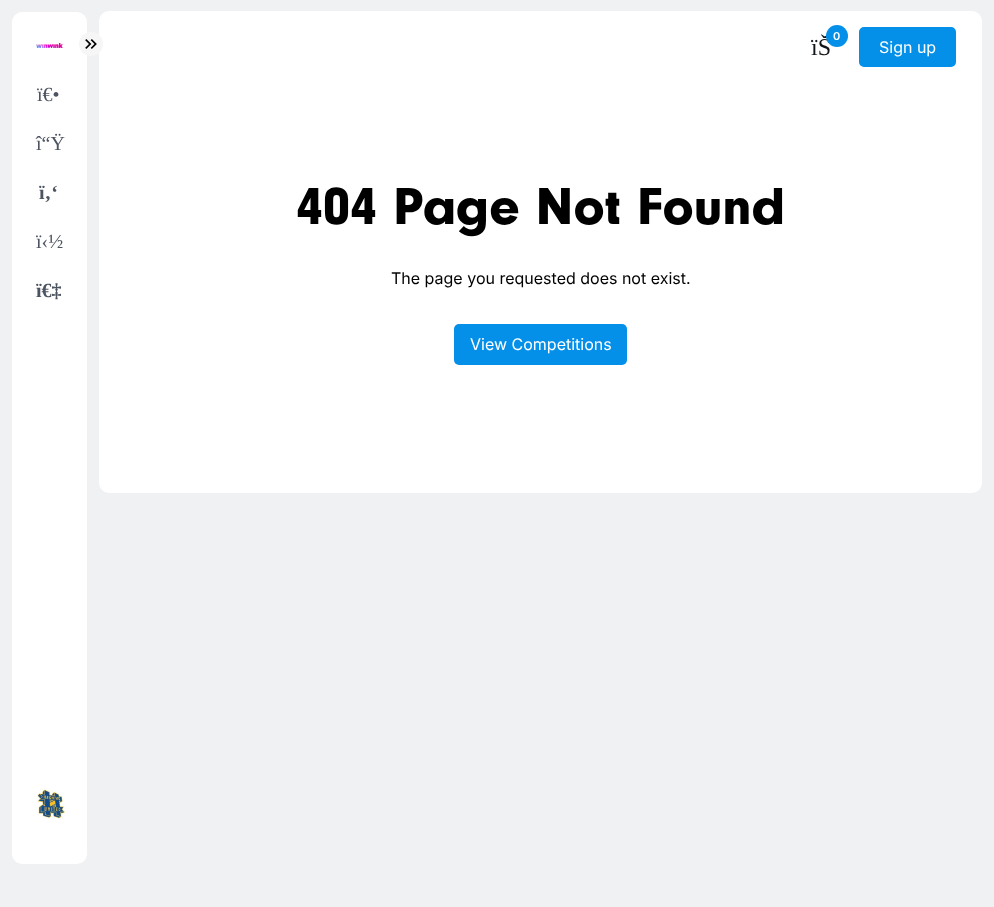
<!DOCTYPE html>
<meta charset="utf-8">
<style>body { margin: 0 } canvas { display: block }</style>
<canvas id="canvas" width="994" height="907"></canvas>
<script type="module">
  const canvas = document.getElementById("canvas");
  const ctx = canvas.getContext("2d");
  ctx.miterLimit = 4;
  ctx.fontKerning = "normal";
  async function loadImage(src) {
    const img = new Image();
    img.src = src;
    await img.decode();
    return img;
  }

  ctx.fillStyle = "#f0f1f3";
  ctx.fillRect(0, 0, 994, 907);
  ctx.fillStyle = "#ffffff";
  ctx.beginPath();
  ctx.roundRect(12, 12, 75, 852, 10);
  ctx.fill();
  ctx.drawImage(await loadImage("img1.png"), 36, 43, 27, 5);
  ctx.beginPath();
  ctx.roundRect(99, 11, 883, 482, 10);
  ctx.fill();
  ctx.fillStyle = "#f6f6f6";
  ctx.beginPath();
  ctx.arc(91, 44, 12, 0, Math.PI * 2);
  ctx.fill();
  ctx.drawImage(await loadImage("img2.png"), 85, 39, 12, 10);
  ctx.font = "20px Liberation Serif";
  ctx.fillStyle = "#4d5461";
  ctx.fillText("ï€•", 37, 101);
  ctx.fillText("î“Ÿ", 36, 150);
  ctx.font = "bold 20px Liberation Serif";
  ctx.fillText("ï‚‘", 39, 199);
  ctx.font = "20px Liberation Serif";
  ctx.fillText("ï‹½", 36, 248);
  ctx.font = "bold 20px Liberation Serif";
  ctx.fillText("ï€‡", 36, 297);
  ctx.drawImage(await loadImage("img3.png"), 36, 789, 29, 31);
  ctx.font = "24px Liberation Serif";
  ctx.fillStyle = "#131619";
  ctx.fillText("ïŠ", 811, 55);
  ctx.fillStyle = "#0490e9";
  ctx.beginPath();
  ctx.arc(837, 36, 11, 0, Math.PI * 2);
  ctx.fill();
  ctx.font = "600 11px Inter";
  ctx.fillStyle = "#ffffff";
  ctx.fillText("0", 833, 40);
  ctx.fillStyle = "#0490e9";
  ctx.beginPath();
  ctx.roundRect(860, 28, 95, 38, 4);
  ctx.fill();
  ctx.strokeStyle = "#0490e9";
  ctx.lineWidth = 2;
  ctx.stroke();
  ctx.font = "16px Inter";
  ctx.fillStyle = "#ffffff";
  ctx.fillText("Sign up", 879, 53);
  ctx.font = "900 54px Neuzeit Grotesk";
  ctx.fillStyle = "#000000";
  ctx.fillText("404 Page Not Found", 296, 224);
  ctx.font = "16px Inter";
  ctx.fillText("The page you requested does not exist.", 391, 284);
  ctx.fillStyle = "#0490e9";
  ctx.beginPath();
  ctx.roundRect(454, 324, 173, 41, 5);
  ctx.fill();
  ctx.fillStyle = "#ffffff";
  ctx.fillText("View Competitions", 470, 350);
</script>
